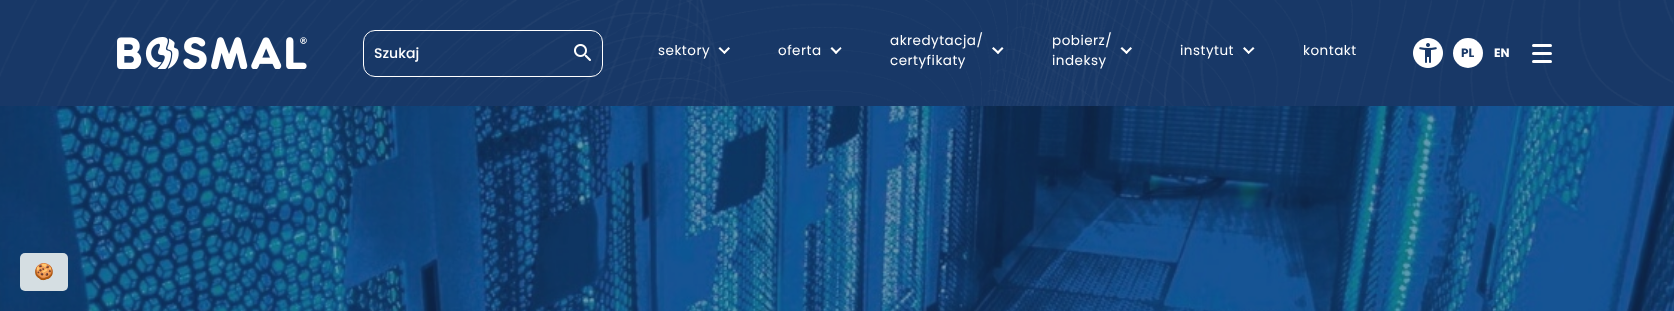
<!DOCTYPE html>
<meta charset="utf-8">
<style>body { margin: 0 } canvas { display: block }</style>
<canvas id="canvas" width="1674" height="311"></canvas>
<script type="module">
  const canvas = document.getElementById("canvas");
  const ctx = canvas.getContext("2d");
  ctx.miterLimit = 4;
  ctx.fontKerning = "normal";
  async function loadImage(src) {
    const img = new Image();
    img.src = src;
    await img.decode();
    return img;
  }

  ctx.fillStyle = "#ffffff";
  ctx.fillRect(0, 0, 1674, 311);
  ctx.fillStyle = "#183867";
  ctx.fillRect(0, 0, 1674, 106);
  ctx.beginPath();
  ctx.roundRect(363.5, 30.5, 239, 46, 11.5);
  ctx.strokeStyle = "#ffffff";
  ctx.stroke();
  ctx.font = "500 14px Poppins";
  ctx.fillStyle = "#ffffff";
  ctx.fillText("Szukaj", 374, 58);
  ctx.drawImage(await loadImage("img3.png"), 574, 44, 17, 17);
  ctx.letterSpacing = "0.5px";
  ctx.font = "13.5px Poppins";
  ctx.fillText("sektory", 658, 55);
  ctx.beginPath();
  ctx.moveTo(723, 52.5);
  ctx.lineTo(728.5, 47);
  ctx.lineTo(730, 48.5);
  ctx.lineTo(724.5, 54);
  ctx.closePath();
  ctx.fill();
  ctx.beginPath();
  ctx.moveTo(718.5, 48.5);
  ctx.lineTo(720, 47);
  ctx.lineTo(725.5, 52.5);
  ctx.lineTo(724.5, 54);
  ctx.closePath();
  ctx.fill();
  ctx.fillText("oferta", 778, 55);
  ctx.beginPath();
  ctx.moveTo(834.5, 52.5);
  ctx.lineTo(840.5, 47);
  ctx.lineTo(841.5, 48.5);
  ctx.lineTo(836, 54);
  ctx.closePath();
  ctx.fill();
  ctx.beginPath();
  ctx.moveTo(830.5, 48.5);
  ctx.lineTo(832, 47);
  ctx.lineTo(837.5, 52.5);
  ctx.lineTo(836, 54);
  ctx.closePath();
  ctx.fill();
  ctx.fillText("akredytacja/", 890, 45);
  ctx.beginPath();
  ctx.moveTo(996.5, 52.5);
  ctx.lineTo(1002, 47);
  ctx.lineTo(1003.5, 48.5);
  ctx.lineTo(998, 54);
  ctx.closePath();
  ctx.fill();
  ctx.beginPath();
  ctx.moveTo(992, 48.5);
  ctx.lineTo(993.5, 47);
  ctx.lineTo(999.5, 52.5);
  ctx.lineTo(998, 54);
  ctx.closePath();
  ctx.fill();
  ctx.fillText("certyfikaty", 890, 65);
  ctx.fillText("pobierz/", 1052, 45);
  ctx.beginPath();
  ctx.moveTo(1125, 52.5);
  ctx.lineTo(1130.5, 47);
  ctx.lineTo(1132, 48.5);
  ctx.lineTo(1126.5, 54);
  ctx.closePath();
  ctx.fill();
  ctx.beginPath();
  ctx.moveTo(1120.5, 48.5);
  ctx.lineTo(1122, 47);
  ctx.lineTo(1128, 52.5);
  ctx.lineTo(1126.5, 54);
  ctx.closePath();
  ctx.fill();
  ctx.fillText("indeksy", 1052, 65);
  ctx.fillText("instytut", 1180, 55);
  ctx.beginPath();
  ctx.moveTo(1247.5, 52.5);
  ctx.lineTo(1253, 47);
  ctx.lineTo(1254.5, 48.5);
  ctx.lineTo(1248.5, 54);
  ctx.closePath();
  ctx.fill();
  ctx.beginPath();
  ctx.moveTo(1243, 48.5);
  ctx.lineTo(1244.5, 47);
  ctx.lineTo(1250, 52.5);
  ctx.lineTo(1248.5, 54);
  ctx.closePath();
  ctx.fill();
  ctx.fillText("kontakt", 1303, 55);
  ctx.drawImage(await loadImage("img4.png"), 1413, 38, 30, 30);
  ctx.beginPath();
  ctx.arc(1468, 53, 15, 0, Math.PI * 2);
  ctx.fill();
  ctx.letterSpacing = "0px";
  ctx.font = "bold 12px Poppins";
  ctx.fillStyle = "#183867";
  ctx.fillText("PL", 1461, 57);
  ctx.fillStyle = "#ffffff";
  ctx.fillText("EN", 1494, 57);
  ctx.beginPath();
  ctx.roundRect(1532, 44, 20, 3, 1.5);
  ctx.fill();
  ctx.beginPath();
  ctx.roundRect(1532, 52, 20, 3, 1.5);
  ctx.fill();
  ctx.beginPath();
  ctx.roundRect(1532, 60, 20, 3, 1.5);
  ctx.fill();
  ctx.drawImage(await loadImage("img1.png"), 0, 0, 1673, 106);
  ctx.drawImage(await loadImage("img2.png"), 117, 37, 190, 32);
  ctx.drawImage(await loadImage("img5.png"), 0, 106, 1674, 205);
  ctx.fillStyle = "#d5dee2";
  ctx.beginPath();
  ctx.roundRect(20, 253, 48, 38, 5);
  ctx.fill();
  ctx.font = "16px Noto Color Emoji";
  ctx.fillStyle = "#ffffff";
  ctx.fillText("🍪", 34, 277);
</script>
